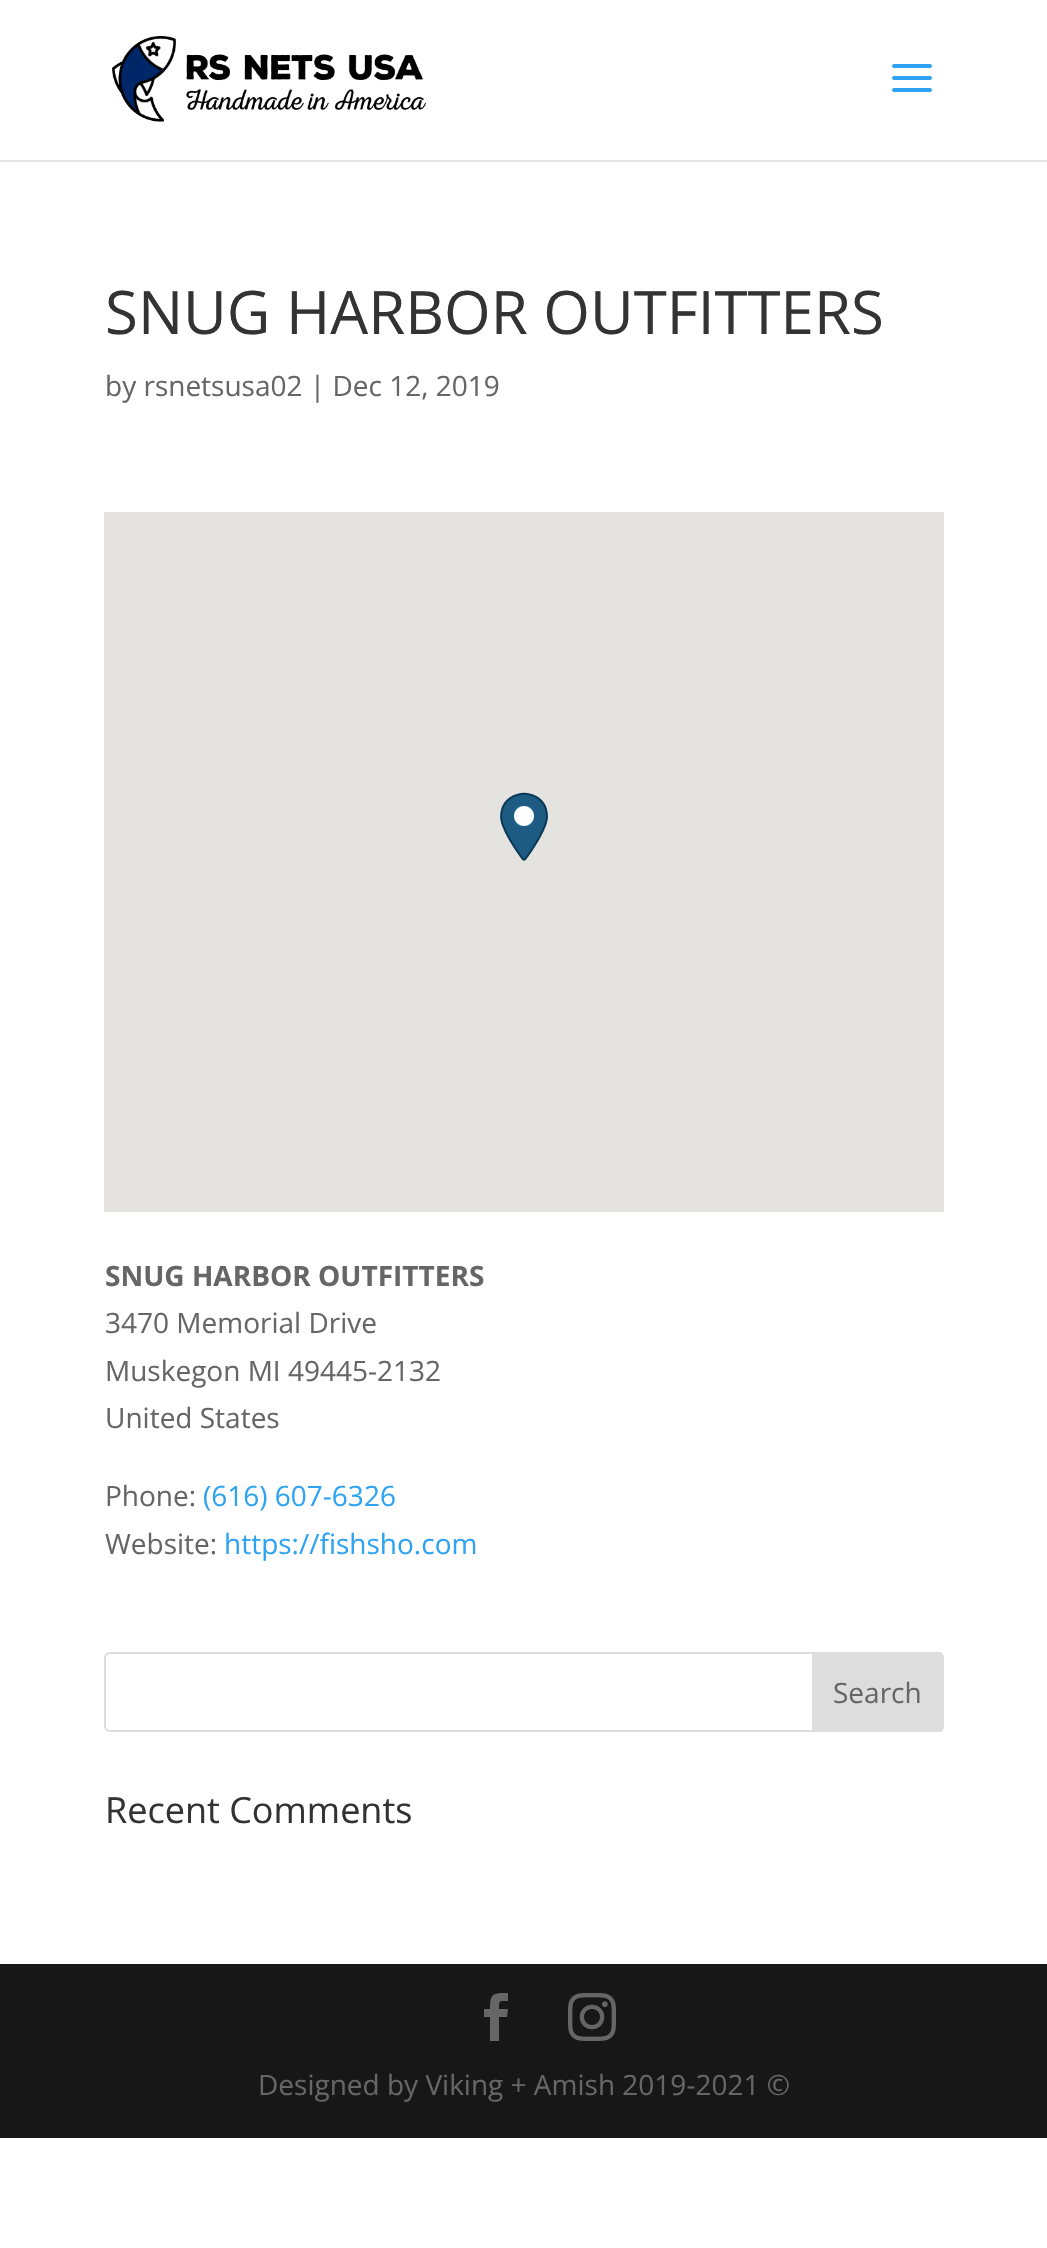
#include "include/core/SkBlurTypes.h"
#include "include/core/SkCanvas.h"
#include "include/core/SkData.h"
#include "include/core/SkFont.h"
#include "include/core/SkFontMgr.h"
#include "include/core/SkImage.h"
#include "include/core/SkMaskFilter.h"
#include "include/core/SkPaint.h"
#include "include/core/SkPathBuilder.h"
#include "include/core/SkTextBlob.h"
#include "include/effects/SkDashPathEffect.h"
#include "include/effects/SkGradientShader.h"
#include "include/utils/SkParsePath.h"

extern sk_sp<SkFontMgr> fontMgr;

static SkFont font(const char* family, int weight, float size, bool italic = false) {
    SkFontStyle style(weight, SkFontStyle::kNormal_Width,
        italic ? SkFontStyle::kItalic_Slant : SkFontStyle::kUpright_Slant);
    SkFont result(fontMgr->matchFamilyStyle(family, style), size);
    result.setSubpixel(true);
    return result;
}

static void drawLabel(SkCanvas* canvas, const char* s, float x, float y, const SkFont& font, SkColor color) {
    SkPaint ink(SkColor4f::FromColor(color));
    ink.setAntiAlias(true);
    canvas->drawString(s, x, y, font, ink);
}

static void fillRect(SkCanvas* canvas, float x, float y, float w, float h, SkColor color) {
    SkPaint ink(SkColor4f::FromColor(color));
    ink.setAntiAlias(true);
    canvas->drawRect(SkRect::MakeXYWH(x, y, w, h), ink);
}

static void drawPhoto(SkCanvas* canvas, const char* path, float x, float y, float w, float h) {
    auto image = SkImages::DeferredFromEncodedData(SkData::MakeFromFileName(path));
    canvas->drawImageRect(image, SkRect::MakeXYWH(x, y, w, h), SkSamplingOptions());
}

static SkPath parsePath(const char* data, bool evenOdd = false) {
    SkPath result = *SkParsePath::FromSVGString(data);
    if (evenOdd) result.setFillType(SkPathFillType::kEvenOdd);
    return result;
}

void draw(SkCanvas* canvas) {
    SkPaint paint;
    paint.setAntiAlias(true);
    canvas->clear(0xFFFFFFFF);
    fillRect(canvas, 0, 160, 1047, 2, 0xFFE6E6E6);
    drawPhoto(canvas, "assets/img1.png", 112, 36, 314, 86);
    drawPhoto(canvas, "assets/img2.png", 892, 64, 40, 28);
    SkFont font1 = font("Open Sans", 400, 60);
    drawLabel(canvas, "SNUG HARBOR OUTFITTERS", 105, 334, font1, 0xFF333333);
    SkFont font2 = font("Open Sans", 400, 28);
    drawLabel(canvas, "by rsnetsusa02 | Dec 12, 2019", 105, 396, font2, 0xFF666666);
    fillRect(canvas, 104, 512, 840, 700, 0xFFE5E3DF);
    drawPhoto(canvas, "assets/img3.png", 500, 792, 48, 69);
    SkFont font3 = font("Open Sans", 700, 28);
    drawLabel(canvas, "SNUG HARBOR OUTFITTERS", 105, 1286, font3, 0xFF666666);
    drawLabel(canvas, "3470 Memorial Drive", 105, 1333, font2, 0xFF666666);
    drawLabel(canvas, "Muskegon MI 49445-2132", 105, 1381, font2, 0xFF666666);
    drawLabel(canvas, "United States", 105, 1428, font2, 0xFF666666);
    drawLabel(canvas, "Phone:", 105, 1506, font2, 0xFF666666);
    drawLabel(canvas, "(616) 607-6326", 203, 1506, font2, 0xFF2EA3F2);
    drawLabel(canvas, "Website:", 105, 1554, font2, 0xFF666666);
    drawLabel(canvas, "https://fishsho.com", 224, 1554, font2, 0xFF2EA3F2);
    paint.setStroke(true);
    paint.setStrokeWidth(2);
    paint.setColor(0xFFDDDDDD);
    canvas->drawRoundRect(SkRect::MakeXYWH(105, 1653, 838, 78), 5, 5, paint);
    paint.setStroke(false);
    canvas->drawPath(parsePath("M813 1653H938C941 1653 943 1655 943 1658V1726C943 1729 941 1731 938 1731H813Z"), paint);
    paint.setStroke(true);
    canvas->drawPath(parsePath("M813 1653H938C941 1653 943 1655 943 1658V1726C943 1729 941 1731 938 1731H813Z"), paint);
    drawLabel(canvas, "Search", 833, 1703, font2, 0xFF666666);
    SkFont font4 = font("Open Sans", 400, 36);
    drawLabel(canvas, "Recent Comments", 105, 1823, font4, 0xFF333333);
    fillRect(canvas, 0, 1964, 1047, 174, 0xFF171717);
    paint.setStroke(false);
    paint.setColor(0xFF666666);
    canvas->drawPath(parsePath("M490 2041H499V2017H507L508 2009H499C499 2000 499 2001 508 2001V1993C493 1993 490 1993 490 2009H484V2017H490Z"), paint);
    drawPhoto(canvas, "assets/img4.png", 568, 1993, 48, 48);
    drawLabel(canvas, "Designed by Viking + Amish 2019-2021 ©", 258, 2095, font2, 0xFF666666);
}
